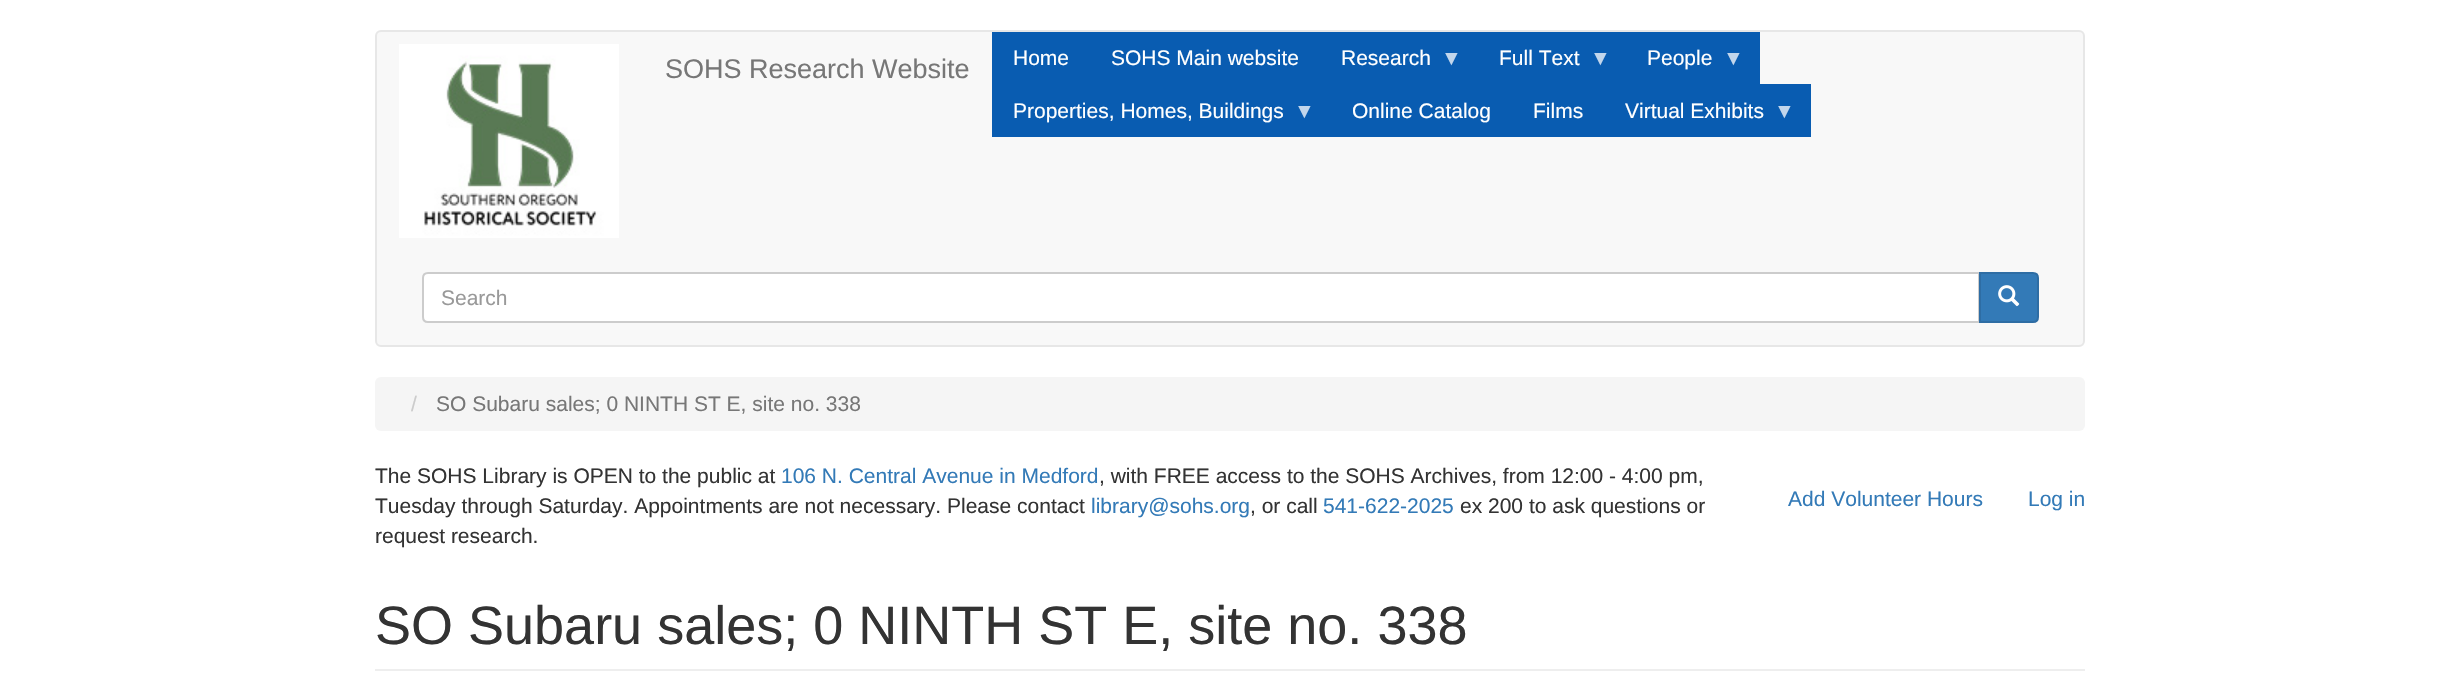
#include "include/core/SkBlurTypes.h"
#include "include/core/SkCanvas.h"
#include "include/core/SkData.h"
#include "include/core/SkFont.h"
#include "include/core/SkFontMgr.h"
#include "include/core/SkImage.h"
#include "include/core/SkMaskFilter.h"
#include "include/core/SkPaint.h"
#include "include/core/SkPathBuilder.h"
#include "include/core/SkTextBlob.h"
#include "include/effects/SkDashPathEffect.h"
#include "include/effects/SkGradientShader.h"
#include "include/utils/SkParsePath.h"

extern sk_sp<SkFontMgr> fontMgr;

static SkFont font(const char* family, int weight, float size, bool italic = false) {
    SkFontStyle style(weight, SkFontStyle::kNormal_Width,
        italic ? SkFontStyle::kItalic_Slant : SkFontStyle::kUpright_Slant);
    SkFont result(fontMgr->matchFamilyStyle(family, style), size);
    result.setSubpixel(true);
    return result;
}

static void drawLabel(SkCanvas* canvas, const char* s, float x, float y, const SkFont& font, SkColor color) {
    SkPaint ink(SkColor4f::FromColor(color));
    ink.setAntiAlias(true);
    canvas->drawString(s, x, y, font, ink);
}

static void fillRect(SkCanvas* canvas, float x, float y, float w, float h, SkColor color) {
    SkPaint ink(SkColor4f::FromColor(color));
    ink.setAntiAlias(true);
    canvas->drawRect(SkRect::MakeXYWH(x, y, w, h), ink);
}

static void fillRRect(SkCanvas* canvas, float x, float y, float w, float h, float radius, SkColor color) {
    SkPaint ink(SkColor4f::FromColor(color));
    ink.setAntiAlias(true);
    canvas->drawRoundRect(SkRect::MakeXYWH(x, y, w, h), radius, radius, ink);
}

static void drawPhoto(SkCanvas* canvas, const char* path, float x, float y, float w, float h) {
    auto image = SkImages::DeferredFromEncodedData(SkData::MakeFromFileName(path));
    canvas->drawImageRect(image, SkRect::MakeXYWH(x, y, w, h), SkSamplingOptions());
}

static SkPath parsePath(const char* data, bool evenOdd = false) {
    SkPath result = *SkParsePath::FromSVGString(data);
    if (evenOdd) result.setFillType(SkPathFillType::kEvenOdd);
    return result;
}

void draw(SkCanvas* canvas) {
    SkPaint paint;
    paint.setAntiAlias(true);
    canvas->clear(0xFFFFFFFF);
    paint.setColor(0xFFF8F8F8);
    canvas->drawRoundRect(SkRect::MakeXYWH(376, 31, 1708, 315), 5, 5, paint);
    paint.setStroke(true);
    paint.setStrokeWidth(2);
    paint.setColor(0xFFE7E7E7);
    canvas->drawRoundRect(SkRect::MakeXYWH(376, 31, 1708, 315), 5, 5, paint);
    fillRect(canvas, 992, 32, 768, 52, 0xFF095CB1);
    SkFont font1 = font("Liberation Sans", 400, 21);
    drawLabel(canvas, "Home", 1013, 65, font1, 0xFFFFFFFF);
    drawLabel(canvas, "SOHS Main website", 1111, 65, font1, 0xFFFFFFFF);
    drawLabel(canvas, "Research", 1341, 65, font1, 0xFFFFFFFF);
    drawLabel(canvas, "▼", 1441, 65, font1, 0xFFC2D6EC);
    drawLabel(canvas, "Full Text", 1499, 65, font1, 0xFFFFFFFF);
    drawLabel(canvas, "▼", 1590, 65, font1, 0xFFC2D6EC);
    drawLabel(canvas, "People", 1647, 65, font1, 0xFFFFFFFF);
    drawLabel(canvas, "▼", 1723, 65, font1, 0xFFC2D6EC);
    fillRect(canvas, 992, 84, 819, 53, 0xFF095CB1);
    drawLabel(canvas, "Properties, Homes, Buildings", 1013, 118, font1, 0xFFFFFFFF);
    drawLabel(canvas, "▼", 1294, 118, font1, 0xFFC2D6EC);
    drawLabel(canvas, "Online Catalog", 1352, 118, font1, 0xFFFFFFFF);
    drawLabel(canvas, "Films", 1533, 118, font1, 0xFFFFFFFF);
    drawLabel(canvas, "Virtual Exhibits", 1625, 118, font1, 0xFFFFFFFF);
    drawLabel(canvas, "▼", 1774, 118, font1, 0xFFC2D6EC);
    paint.setStroke(false);
    paint.setColor(0xFFFFFFFF);
    canvas->drawPath(parsePath("M428 273H1979V322H428C425 322 423 320 423 317V278C423 275 425 273 428 273Z"), paint);
    paint.setStroke(true);
    paint.setColor(0xFFCCCCCC);
    canvas->drawPath(parsePath("M428 273H1979V322H428C425 322 423 320 423 317V278C423 275 425 273 428 273Z"), paint);
    drawLabel(canvas, "Search", 441, 305, font1, 0xFF999999);
    paint.setStroke(false);
    paint.setColor(0xFF337AB7);
    canvas->drawPath(parsePath("M1980 273H2033C2036 273 2038 275 2038 278V317C2038 320 2036 322 2033 322H1980Z"), paint);
    paint.setStroke(true);
    paint.setColor(0xFF2E6DA4);
    canvas->drawPath(parsePath("M1980 273H2033C2036 273 2038 275 2038 278V317C2038 320 2036 322 2033 322H1980Z"), paint);
    drawPhoto(canvas, "assets/img1.png", 1998, 285, 22, 22);
    drawPhoto(canvas, "assets/img2.png", 399, 44, 220, 194);
    SkFont font2 = font("Liberation Sans", 400, 27);
    drawLabel(canvas, "SOHS Research Website", 665, 78, font2, 0xFF777777);
    fillRRect(canvas, 375, 377, 1710, 54, 6, 0xFFF5F5F5);
    drawLabel(canvas, "/", 411, 411, font1, 0xFFCCCCCC);
    drawLabel(canvas, "SO Subaru sales; 0 NINTH ST E, site no. 338", 436, 411, font1, 0xFF777777);
    drawLabel(canvas, "The SOHS Library is OPEN to the public at", 375, 483, font1, 0xFF333333);
    drawLabel(canvas, "106 N. Central Avenue in Medford", 781, 483, font1, 0xFF337AB7);
    drawLabel(canvas, ", with FREE access to the SOHS Archives, from 12:00 - 4:00 pm,", 1099, 483, font1, 0xFF333333);
    drawLabel(canvas, "Tuesday through Saturday. Appointments are not necessary. Please contact", 375, 513, font1, 0xFF333333);
    drawLabel(canvas, "library@sohs.org", 1091, 513, font1, 0xFF337AB7);
    drawLabel(canvas, ", or call", 1250, 513, font1, 0xFF333333);
    drawLabel(canvas, "541-622-2025", 1323, 513, font1, 0xFF337AB7);
    drawLabel(canvas, "ex 200 to ask questions or", 1460, 513, font1, 0xFF333333);
    drawLabel(canvas, "request research.", 375, 543, font1, 0xFF333333);
    drawLabel(canvas, "Add Volunteer Hours", 1788, 506, font1, 0xFF337AB7);
    drawLabel(canvas, "Log in", 2028, 506, font1, 0xFF337AB7);
    fillRect(canvas, 375, 669, 1710, 2, 0xFFEEEEEE);
    SkFont font3 = font("Liberation Sans", 400, 54);
    drawLabel(canvas, "SO Subaru sales; 0 NINTH ST E, site no. 338", 375, 644, font3, 0xFF333333);
}
